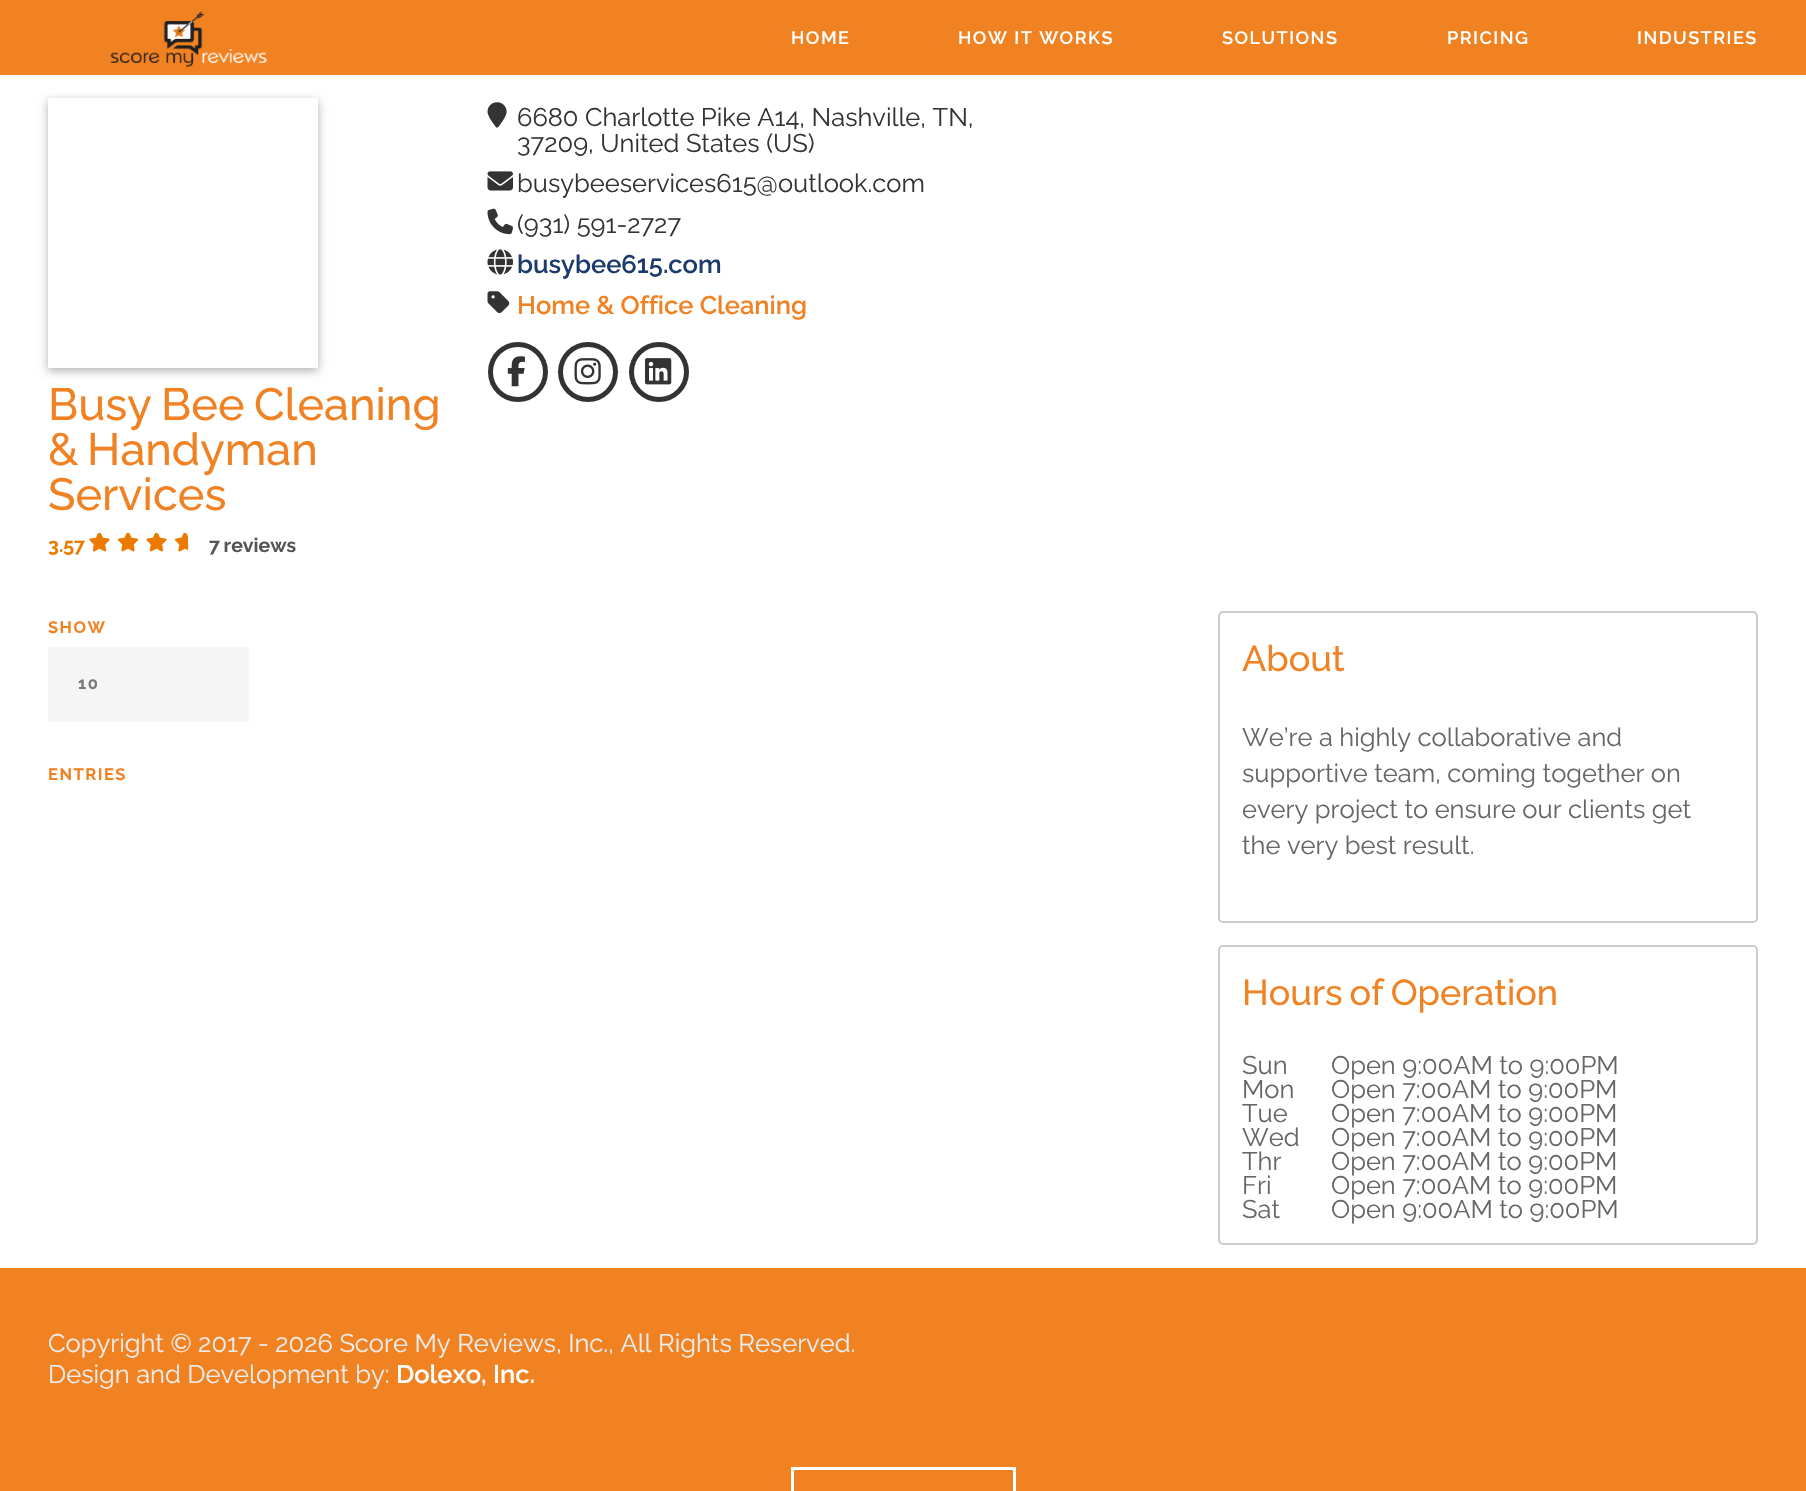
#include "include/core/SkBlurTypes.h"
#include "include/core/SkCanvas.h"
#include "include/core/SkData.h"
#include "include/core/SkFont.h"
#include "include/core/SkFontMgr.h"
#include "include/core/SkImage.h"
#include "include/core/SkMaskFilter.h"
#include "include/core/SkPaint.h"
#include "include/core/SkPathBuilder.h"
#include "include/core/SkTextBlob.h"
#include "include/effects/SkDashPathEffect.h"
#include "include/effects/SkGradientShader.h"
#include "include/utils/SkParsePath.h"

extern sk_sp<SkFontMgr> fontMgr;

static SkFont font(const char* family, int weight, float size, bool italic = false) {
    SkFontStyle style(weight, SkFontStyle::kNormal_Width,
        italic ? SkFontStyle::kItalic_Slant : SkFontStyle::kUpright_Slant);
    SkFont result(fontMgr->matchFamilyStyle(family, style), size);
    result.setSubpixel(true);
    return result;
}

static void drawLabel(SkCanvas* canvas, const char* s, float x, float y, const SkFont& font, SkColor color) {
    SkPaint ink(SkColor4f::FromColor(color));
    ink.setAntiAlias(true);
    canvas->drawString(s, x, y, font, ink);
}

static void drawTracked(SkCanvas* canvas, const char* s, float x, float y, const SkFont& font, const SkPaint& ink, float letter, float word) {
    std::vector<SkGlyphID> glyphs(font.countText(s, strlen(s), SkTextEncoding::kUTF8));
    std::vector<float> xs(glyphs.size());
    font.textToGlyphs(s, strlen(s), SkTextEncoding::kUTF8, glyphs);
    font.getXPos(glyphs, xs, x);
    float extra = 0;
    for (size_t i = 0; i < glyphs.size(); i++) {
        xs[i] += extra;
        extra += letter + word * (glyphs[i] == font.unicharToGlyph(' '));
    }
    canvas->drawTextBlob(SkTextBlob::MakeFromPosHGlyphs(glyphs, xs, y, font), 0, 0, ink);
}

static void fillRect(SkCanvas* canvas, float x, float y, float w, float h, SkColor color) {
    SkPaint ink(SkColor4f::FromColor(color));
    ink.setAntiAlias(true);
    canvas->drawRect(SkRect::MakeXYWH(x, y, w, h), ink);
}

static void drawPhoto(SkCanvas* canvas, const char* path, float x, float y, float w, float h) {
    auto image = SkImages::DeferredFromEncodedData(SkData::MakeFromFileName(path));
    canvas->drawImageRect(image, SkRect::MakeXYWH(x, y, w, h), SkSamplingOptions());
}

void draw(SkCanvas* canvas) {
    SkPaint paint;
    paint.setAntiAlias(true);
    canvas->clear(0xFFFFFFFF);
    fillRect(canvas, 0, 0, 1806, 75, 0xFFF18222);
    drawPhoto(canvas, "assets/img1.png", 110, 11, 158, 57);
    SkFont font1 = font("Raleway", 600, 18);
    paint.setColor(0xFFFFFFFF);
    drawTracked(canvas, "HOME", 791, 44, font1, paint, 1.5f, 0);
    drawTracked(canvas, "HOW IT WORKS", 958, 44, font1, paint, 1.5f, 0);
    drawTracked(canvas, "SOLUTIONS", 1222, 44, font1, paint, 1.5f, 0);
    drawTracked(canvas, "PRICING", 1447, 44, font1, paint, 1.5f, 0);
    drawTracked(canvas, "INDUSTRIES", 1637, 44, font1, paint, 1.5f, 0);
    drawPhoto(canvas, "assets/img2.png", 487, 102, 20, 26);
    SkFont font2 = font("Raleway", 400, 25.5f);
    drawLabel(canvas, "6680 Charlotte Pike A14, Nashville, TN,", 517, 126, font2, 0xFF333333);
    drawLabel(canvas, "37209, United States (US)", 517, 152, font2, 0xFF333333);
    drawPhoto(canvas, "assets/img3.png", 487, 171, 26, 20);
    drawLabel(canvas, "busybeeservices615@outlook.com", 517, 192, font2, 0xFF333333);
    drawPhoto(canvas, "assets/img4.png", 487, 208, 26, 27);
    drawLabel(canvas, "(931) 591-2727", 517, 233, font2, 0xFF333333);
    drawPhoto(canvas, "assets/img5.png", 487, 249, 26, 26);
    SkFont font3 = font("Raleway", 600, 25.5f);
    drawLabel(canvas, "busybee615.com", 517, 273, font3, 0xFF1B3A6D);
    drawPhoto(canvas, "assets/img6.png", 487, 291, 23, 23);
    drawLabel(canvas, "Home & Office Cleaning", 517, 314, font3, 0xFFF08223);
    paint.setStroke(true);
    paint.setStrokeWidth(5);
    paint.setColor(0xFF333333);
    canvas->drawCircle(518, 372, 27.5f, paint);
    drawPhoto(canvas, "assets/img7.png", 507, 356, 18, 31);
    canvas->drawCircle(588, 372, 27.5f, paint);
    drawPhoto(canvas, "assets/img8.png", 574, 358, 27, 27);
    canvas->drawCircle(659, 372, 27.5f, paint);
    drawPhoto(canvas, "assets/img9.png", 645, 358, 27, 27);
    paint.setStroke(false);
    paint.setColor(0x4D000000);
    paint.setMaskFilter(SkMaskFilter::MakeBlur(kNormal_SkBlurStyle, 4.5f));
    canvas->drawRect(SkRect::MakeXYWH(48, 101, 270, 270), paint);
    paint.setMaskFilter(nullptr);
    fillRect(canvas, 48, 98, 270, 270, 0xFFFFFFFF);
    SkFont font4 = font("Raleway", 500, 45);
    paint.setColor(0xFFF08223);
    drawTracked(canvas, "Busy Bee Cleaning", 48, 420, font4, paint, 0, -2);
    drawTracked(canvas, "& Handyman", 48, 465, font4, paint, 0, -3);
    drawLabel(canvas, "Services", 48, 510, font4, 0xFFF08223);
    SkFont font5 = font("Raleway", 700, 19.5f);
    drawLabel(canvas, "3.57", 48, 552, font5, 0xFFEC7A00);
    drawPhoto(canvas, "assets/img10.png", 89, 533, 21, 19);
    drawPhoto(canvas, "assets/img11.png", 117, 533, 21, 19);
    drawPhoto(canvas, "assets/img10.png", 146, 533, 21, 19);
    drawPhoto(canvas, "assets/img12.png", 174, 533, 14, 19);
    paint.setColor(0xFF555555);
    drawTracked(canvas, "7 reviews", 209, 552, font5, paint, 0, -1);
    SkFont font6 = font("Raleway", 700, 16.5f);
    paint.setColor(0xFFF08223);
    drawTracked(canvas, "SHOW", 48, 633, font6, paint, 1.5f, 0);
    fillRect(canvas, 48, 647, 201, 75, 0xFFF5F5F5);
    paint.setColor(0xFF777777);
    drawTracked(canvas, "10", 78, 689, font6, paint, 1.5f, 0);
    paint.setColor(0xFFF08223);
    drawTracked(canvas, "ENTRIES", 48, 780, font6, paint, 1.5f, 0);
    paint.setStroke(true);
    paint.setStrokeWidth(2);
    paint.setColor(0xFFCCCCCC);
    canvas->drawRoundRect(SkRect::MakeXYWH(1219, 612, 538, 310), 4, 4, paint);
    SkFont font7 = font("Raleway", 500, 36);
    drawLabel(canvas, "About", 1242, 671, font7, 0xFFF08223);
    drawLabel(canvas, "We’re a highly collaborative and", 1242, 746, font2, 0xFF666666);
    drawLabel(canvas, "supportive team, coming together on", 1242, 782, font2, 0xFF666666);
    drawLabel(canvas, "every project to ensure our clients get", 1242, 818, font2, 0xFF666666);
    drawLabel(canvas, "the very best result.", 1242, 854, font2, 0xFF666666);
    canvas->drawRoundRect(SkRect::MakeXYWH(1219, 946, 538, 298), 4, 4, paint);
    paint.setStroke(false);
    paint.setColor(0xFFF08223);
    drawTracked(canvas, "Hours of Operation", 1242, 1005, font7, paint, 0, -2);
    drawLabel(canvas, "Sun", 1242, 1074, font2, 0xFF666666);
    drawLabel(canvas, "Open 9:00AM to 9:00PM", 1331, 1074, font2, 0xFF666666);
    drawLabel(canvas, "Mon", 1242, 1098, font2, 0xFF666666);
    drawLabel(canvas, "Open 7:00AM to 9:00PM", 1331, 1098, font2, 0xFF666666);
    drawLabel(canvas, "Tue", 1242, 1122, font2, 0xFF666666);
    drawLabel(canvas, "Open 7:00AM to 9:00PM", 1331, 1122, font2, 0xFF666666);
    drawLabel(canvas, "Wed", 1242, 1146, font2, 0xFF666666);
    drawLabel(canvas, "Open 7:00AM to 9:00PM", 1331, 1146, font2, 0xFF666666);
    drawLabel(canvas, "Thr", 1242, 1170, font2, 0xFF666666);
    drawLabel(canvas, "Open 7:00AM to 9:00PM", 1331, 1170, font2, 0xFF666666);
    drawLabel(canvas, "Fri", 1242, 1194, font2, 0xFF666666);
    drawLabel(canvas, "Open 7:00AM to 9:00PM", 1331, 1194, font2, 0xFF666666);
    drawLabel(canvas, "Sat", 1242, 1218, font2, 0xFF666666);
    drawLabel(canvas, "Open 9:00AM to 9:00PM", 1331, 1218, font2, 0xFF666666);
    fillRect(canvas, 0, 1268, 1806, 223, 0xFFF18222);
    drawLabel(canvas, "Copyright © 2017 - 2026 Score My Reviews, Inc., All Rights Reserved.", 48, 1352, font2, 0xFFECECEC);
    drawLabel(canvas, "Design and Development by:", 48, 1383, font2, 0xFFECECEC);
    drawLabel(canvas, "Dolexo, Inc.", 396, 1383, font3, 0xFFFFFFFF);
    paint.setStroke(true);
    paint.setStrokeWidth(3);
    paint.setColor(0xFFFFFFFF);
    canvas->drawRect(SkRect::MakeXYWH(792.5f, 1468.5f, 222, 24), paint);
}
